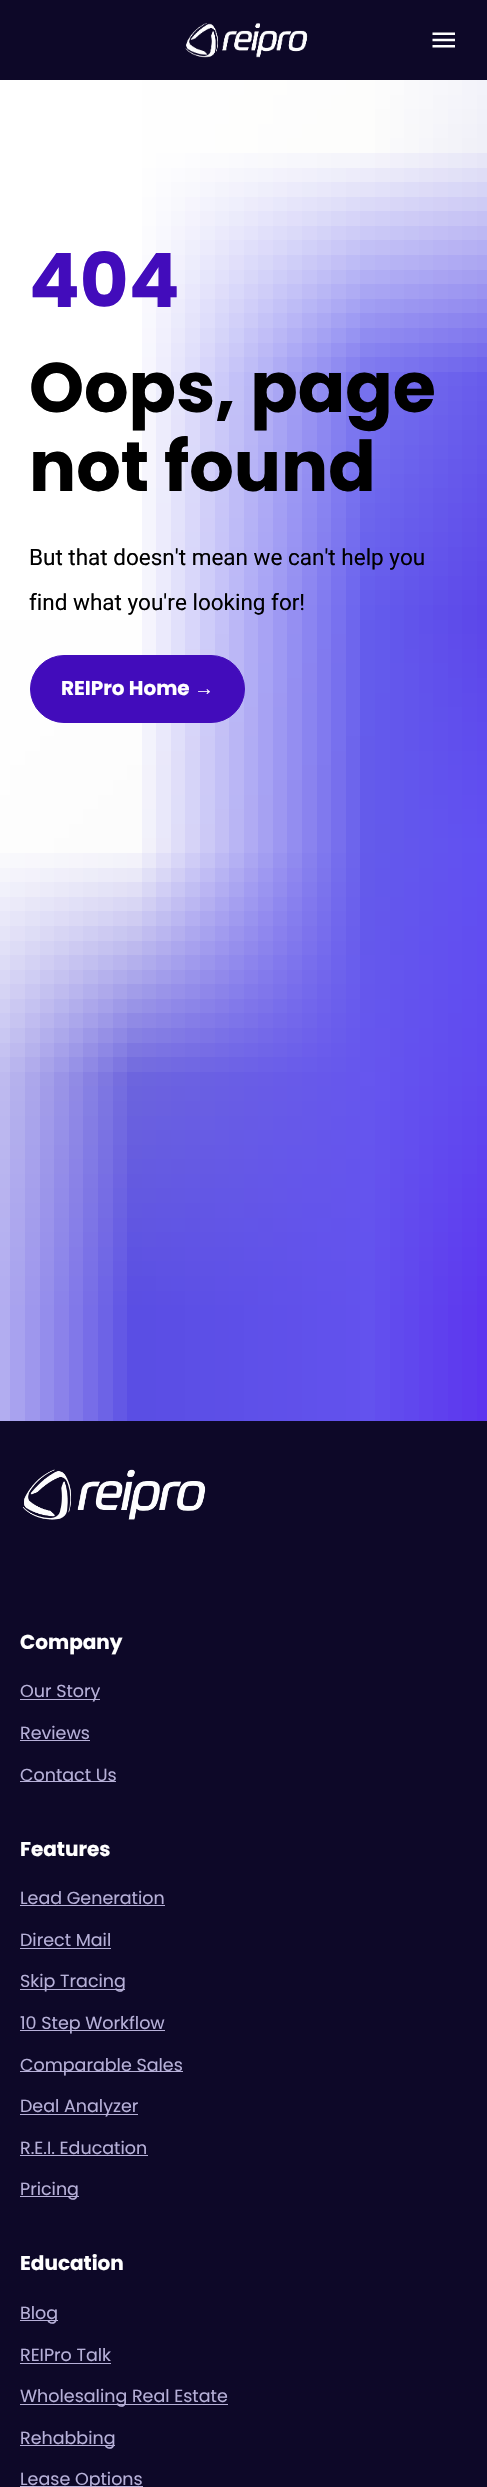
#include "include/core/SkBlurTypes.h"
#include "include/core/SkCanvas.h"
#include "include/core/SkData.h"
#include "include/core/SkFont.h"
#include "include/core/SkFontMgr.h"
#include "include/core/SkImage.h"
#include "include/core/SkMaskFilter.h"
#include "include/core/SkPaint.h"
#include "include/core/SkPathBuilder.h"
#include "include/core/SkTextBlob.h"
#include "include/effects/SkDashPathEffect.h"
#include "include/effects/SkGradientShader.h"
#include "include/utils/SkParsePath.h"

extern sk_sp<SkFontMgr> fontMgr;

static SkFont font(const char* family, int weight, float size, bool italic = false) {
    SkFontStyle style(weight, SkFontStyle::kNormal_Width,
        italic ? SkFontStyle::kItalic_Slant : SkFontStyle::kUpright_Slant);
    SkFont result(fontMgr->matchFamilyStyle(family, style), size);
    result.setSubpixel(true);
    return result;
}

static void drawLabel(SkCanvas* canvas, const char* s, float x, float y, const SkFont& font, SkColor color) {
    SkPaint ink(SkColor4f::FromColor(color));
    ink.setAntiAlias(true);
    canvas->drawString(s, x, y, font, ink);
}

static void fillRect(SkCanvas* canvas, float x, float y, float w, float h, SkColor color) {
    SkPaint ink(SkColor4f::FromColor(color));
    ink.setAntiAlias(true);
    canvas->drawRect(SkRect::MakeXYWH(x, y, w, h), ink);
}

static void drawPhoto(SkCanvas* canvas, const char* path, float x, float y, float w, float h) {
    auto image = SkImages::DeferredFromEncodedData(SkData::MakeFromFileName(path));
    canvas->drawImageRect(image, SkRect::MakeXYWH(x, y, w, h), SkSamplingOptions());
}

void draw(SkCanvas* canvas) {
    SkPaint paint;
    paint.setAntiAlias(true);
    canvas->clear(0xFFFFFFFF);
    fillRect(canvas, 0, 0, 487, 80, 0xFF0D0828);
    drawPhoto(canvas, "assets/img1.png", 185, 23, 123, 35);
    drawPhoto(canvas, "assets/img2.png", 432, 32, 23, 16);
    drawPhoto(canvas, "assets/img3.png", 0, 80, 487, 1341);
    SkFont font1 = font("Poppins", 700, 75);
    drawLabel(canvas, "404", 29, 307, font1, 0xFF420CBB);
    SkFont font2 = font("Poppins", 700, 70);
    drawLabel(canvas, "Oops, page", 29, 412, font2, 0xFF000000);
    drawLabel(canvas, "not found", 29, 491, font2, 0xFF000000);
    SkFont font3 = font("Roboto", 400, 22.5f);
    drawLabel(canvas, "But that doesn't mean we can't help you", 29, 565, font3, 0xFF000000);
    drawLabel(canvas, "find what you're looking for!", 29, 610, font3, 0xFF000000);
    paint.setColor(0xFF420CBB);
    canvas->drawRoundRect(SkRect::MakeXYWH(30.5f, 655.5f, 214, 67), 33.5f, 33.5f, paint);
    paint.setStroke(true);
    paint.setStrokeWidth(1);
    canvas->drawRoundRect(SkRect::MakeXYWH(30.5f, 655.5f, 214, 67), 33.5f, 33.5f, paint);
    SkFont font4 = font("Poppins", 700, 20);
    drawLabel(canvas, "REIPro Home", 61, 695, font4, 0xFFFFFFFF);
    SkFont font5 = font("Liberation Sans", 700, 20);
    drawLabel(canvas, "→", 194, 695, font5, 0xFFFFFFFF);
    fillRect(canvas, 0, 1421, 487, 1066, 0xFF0D0828);
    drawPhoto(canvas, "assets/img4.png", 22, 1469, 184, 51);
    drawLabel(canvas, "Company", 20, 1649, font4, 0xFFFFFFFF);
    fillRect(canvas, 20, 1699, 80, 1, 0xFFB6B0D8);
    SkFont font6 = font("Poppins", 400, 17.5f);
    drawLabel(canvas, "Our Story", 20, 1697, font6, 0xFFB6B0D8);
    drawLabel(canvas, "Reviews", 20, 1739, font6, 0xFFB6B0D8);
    fillRect(canvas, 20, 1740, 70, 1, 0xFFB6B0D8);
    fillRect(canvas, 20, 1781, 96, 1, 0xFFB6B0D8);
    drawLabel(canvas, "Contact Us", 20, 1781, font6, 0xFFB6B0D8);
    drawLabel(canvas, "Features", 20, 1856, font4, 0xFFFFFFFF);
    drawLabel(canvas, "Lead Generation", 20, 1904, font6, 0xFFB6B0D8);
    fillRect(canvas, 20, 1905, 145, 1, 0xFFB6B0D8);
    drawLabel(canvas, "Direct Mail", 20, 1946, font6, 0xFFB6B0D8);
    fillRect(canvas, 20, 1948, 91, 1, 0xFFB6B0D8);
    fillRect(canvas, 20, 1989, 105, 1, 0xFFB6B0D8);
    drawLabel(canvas, "Skip Tracing", 20, 1987, font6, 0xFFB6B0D8);
    fillRect(canvas, 20, 2030, 145, 1, 0xFFB6B0D8);
    drawLabel(canvas, "10 Step Workflow", 20, 2029, font6, 0xFFB6B0D8);
    fillRect(canvas, 20, 2071, 163, 1, 0xFFB6B0D8);
    drawLabel(canvas, "Comparable Sales", 20, 2071, font6, 0xFFB6B0D8);
    fillRect(canvas, 20, 2114, 118, 1, 0xFFB6B0D8);
    drawLabel(canvas, "Deal Analyzer", 20, 2112, font6, 0xFFB6B0D8);
    drawLabel(canvas, "R.E.I. Education", 20, 2154, font6, 0xFFB6B0D8);
    fillRect(canvas, 20, 2155, 128, 1, 0xFFB6B0D8);
    fillRect(canvas, 20, 2196, 59, 1, 0xFFB6B0D8);
    drawLabel(canvas, "Pricing", 20, 2195, font6, 0xFFB6B0D8);
    drawLabel(canvas, "Education", 20, 2270, font4, 0xFFFFFFFF);
    fillRect(canvas, 20, 2320, 38, 1, 0xFFB6B0D8);
    drawLabel(canvas, "Blog", 20, 2319, font6, 0xFFB6B0D8);
    drawLabel(canvas, "REIPro Talk", 20, 2361, font6, 0xFFB6B0D8);
    fillRect(canvas, 20, 2363, 91, 1, 0xFFB6B0D8);
    fillRect(canvas, 20, 2404, 208, 1, 0xFFB6B0D8);
    drawLabel(canvas, "Wholesaling Real Estate", 20, 2402, font6, 0xFFB6B0D8);
    fillRect(canvas, 20, 2445, 95, 1, 0xFFB6B0D8);
    drawLabel(canvas, "Rehabbing", 20, 2444, font6, 0xFFB6B0D8);
    fillRect(canvas, 20, 2486, 123, 1, 0xFFB6B0D8);
    drawLabel(canvas, "Lease Options", 20, 2485, font6, 0xFFB6B0D8);
}
